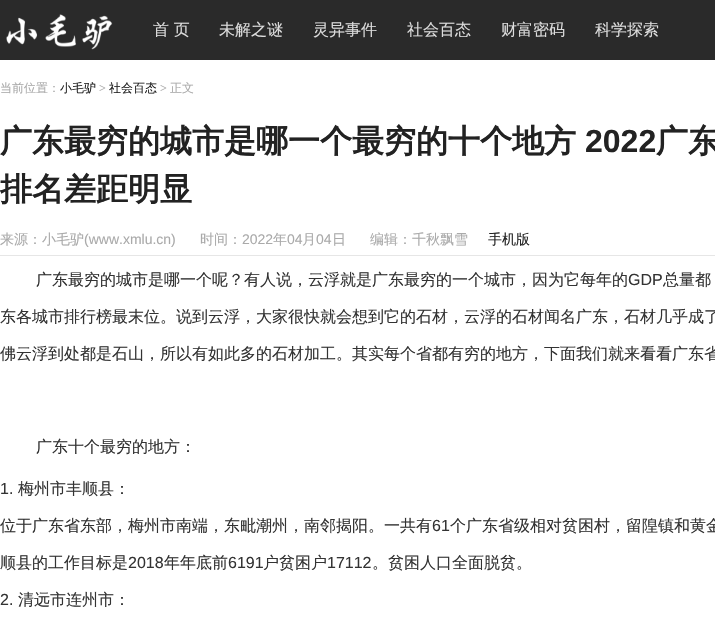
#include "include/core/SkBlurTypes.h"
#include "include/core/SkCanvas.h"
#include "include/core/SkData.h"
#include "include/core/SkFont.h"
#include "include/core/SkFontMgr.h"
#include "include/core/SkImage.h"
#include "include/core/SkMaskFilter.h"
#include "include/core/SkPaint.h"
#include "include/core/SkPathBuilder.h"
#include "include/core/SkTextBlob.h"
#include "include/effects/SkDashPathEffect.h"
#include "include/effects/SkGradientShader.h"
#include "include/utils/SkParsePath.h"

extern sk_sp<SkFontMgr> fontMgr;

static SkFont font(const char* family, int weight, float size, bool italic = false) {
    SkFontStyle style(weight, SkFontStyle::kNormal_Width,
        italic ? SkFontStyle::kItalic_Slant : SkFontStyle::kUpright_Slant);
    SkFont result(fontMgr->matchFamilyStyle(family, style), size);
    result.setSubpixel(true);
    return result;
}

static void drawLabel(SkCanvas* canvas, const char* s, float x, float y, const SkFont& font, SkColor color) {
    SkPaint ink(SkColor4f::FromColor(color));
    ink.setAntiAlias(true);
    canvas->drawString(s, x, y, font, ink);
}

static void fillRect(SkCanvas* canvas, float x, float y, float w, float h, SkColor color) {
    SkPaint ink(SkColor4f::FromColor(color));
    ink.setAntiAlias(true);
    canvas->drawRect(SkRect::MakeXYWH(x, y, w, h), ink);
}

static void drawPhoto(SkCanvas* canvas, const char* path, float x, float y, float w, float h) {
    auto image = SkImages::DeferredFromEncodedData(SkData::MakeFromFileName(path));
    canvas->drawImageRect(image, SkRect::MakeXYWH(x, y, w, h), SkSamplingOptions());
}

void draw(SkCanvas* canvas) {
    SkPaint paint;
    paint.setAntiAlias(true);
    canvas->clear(0xFFFFFFFF);
    fillRect(canvas, 0, 0, 715, 60, 0xFF2A2A2A);
    drawPhoto(canvas, "assets/img1.png", 6, 14, 107, 36);
    SkFont font1 = font("WenQuanYi Zen Hei", 500, 16);
    drawLabel(canvas, "首 页", 153, 35, font1, 0xFFDDDDDD);
    drawLabel(canvas, "未解之谜", 219, 35, font1, 0xFFDDDDDD);
    drawLabel(canvas, "灵异事件", 313, 35, font1, 0xFFDDDDDD);
    drawLabel(canvas, "社会百态", 407, 35, font1, 0xFFDDDDDD);
    drawLabel(canvas, "财富密码", 501, 35, font1, 0xFFDDDDDD);
    drawLabel(canvas, "科学探索", 595, 35, font1, 0xFFDDDDDD);
    SkFont font2 = font("WenQuanYi Zen Hei", 500, 12);
    drawLabel(canvas, "当前位置：", 0, 92, font2, 0xFFAAAAAA);
    drawLabel(canvas, "小毛驴", 60, 92, font2, 0xFF222222);
    SkFont font3 = font("Liberation Serif", 400, 12);
    drawLabel(canvas, ">", 99, 92, font3, 0xFFAAAAAA);
    drawLabel(canvas, "社会百态", 109, 92, font2, 0xFF222222);
    drawLabel(canvas, ">", 160, 92, font3, 0xFFAAAAAA);
    drawLabel(canvas, "正文", 170, 92, font2, 0xFFAAAAAA);
    SkFont font4 = font("WenQuanYi Zen Hei", 700, 32);
    drawLabel(canvas, "广东最穷的城市是哪一个最穷的十个地方", 0, 152, font4, 0xFF222222);
    SkFont font5 = font("Liberation Sans", 700, 32);
    drawLabel(canvas, "2022", 585, 152, font5, 0xFF222222);
    drawLabel(canvas, "广东", 656, 152, font4, 0xFF222222);
    drawLabel(canvas, "排名差距明显", 0, 200, font4, 0xFF222222);
    fillRect(canvas, 0, 255, 715, 1, 0xFFE6E6E6);
    SkFont font6 = font("WenQuanYi Zen Hei", 500, 14);
    drawLabel(canvas, "来源：小毛驴", 0, 244, font6, 0xFFAAAAAA);
    SkFont font7 = font("Liberation Sans", 400, 14);
    drawLabel(canvas, "(www.xmlu.cn)", 84, 244, font7, 0xFFAAAAAA);
    drawLabel(canvas, "时间：", 200, 244, font6, 0xFFAAAAAA);
    drawLabel(canvas, "2022", 242, 244, font7, 0xFFAAAAAA);
    drawLabel(canvas, "年", 273, 244, font6, 0xFFAAAAAA);
    drawLabel(canvas, "04", 287, 244, font7, 0xFFAAAAAA);
    drawLabel(canvas, "月", 302, 244, font6, 0xFFAAAAAA);
    drawLabel(canvas, "04", 316, 244, font7, 0xFFAAAAAA);
    drawLabel(canvas, "日", 332, 244, font6, 0xFFAAAAAA);
    drawLabel(canvas, "编辑：千秋飘雪", 370, 244, font6, 0xFFAAAAAA);
    drawLabel(canvas, "手机版", 488, 244, font6, 0xFF222222);
    drawLabel(canvas, "广东最穷的城市是哪一个呢？有人说，云浮就是广东最穷的一个城市，因为它每年的", 36, 285, font1, 0xFF333333);
    SkFont font8 = font("Liberation Sans", 400, 16);
    drawLabel(canvas, "GDP", 628, 285, font8, 0xFF333333);
    drawLabel(canvas, "总量都", 663, 285, font1, 0xFF333333);
    drawLabel(canvas, "东各城市排行榜最末位。说到云浮，大家很快就会想到它的石材，云浮的石材闻名广东，石材几乎成了", 0, 322, font1, 0xFF333333);
    drawLabel(canvas, "佛云浮到处都是石山，所以有如此多的石材加工。其实每个省都有穷的地方，下面我们就来看看广东省", 0, 359, font1, 0xFF333333);
    drawLabel(canvas, "广东十个最穷的地方：", 36, 452, font1, 0xFF333333);
    drawLabel(canvas, "1.", 0, 494, font8, 0xFF333333);
    drawLabel(canvas, "梅州市丰顺县：", 18, 494, font1, 0xFF333333);
    drawLabel(canvas, "位于广东省东部，梅州市南端，东毗潮州，南邻揭阳。一共有", 0, 531, font1, 0xFF333333);
    drawLabel(canvas, "61", 432, 531, font8, 0xFF333333);
    drawLabel(canvas, "个广东省级相对贫困村，留隍镇和黄金", 450, 531, font1, 0xFF333333);
    drawLabel(canvas, "顺县的工作目标是", 0, 568, font1, 0xFF333333);
    drawLabel(canvas, "2018", 128, 568, font8, 0xFF333333);
    drawLabel(canvas, "年年底前", 164, 568, font1, 0xFF333333);
    drawLabel(canvas, "6191", 228, 568, font8, 0xFF333333);
    drawLabel(canvas, "户贫困户", 263, 568, font1, 0xFF333333);
    drawLabel(canvas, "17112", 327, 568, font8, 0xFF333333);
    drawLabel(canvas, "。贫困人口全面脱贫。", 372, 568, font1, 0xFF333333);
    drawLabel(canvas, "2.", 0, 605, font8, 0xFF333333);
    drawLabel(canvas, "清远市连州市：", 18, 605, font1, 0xFF333333);
}
